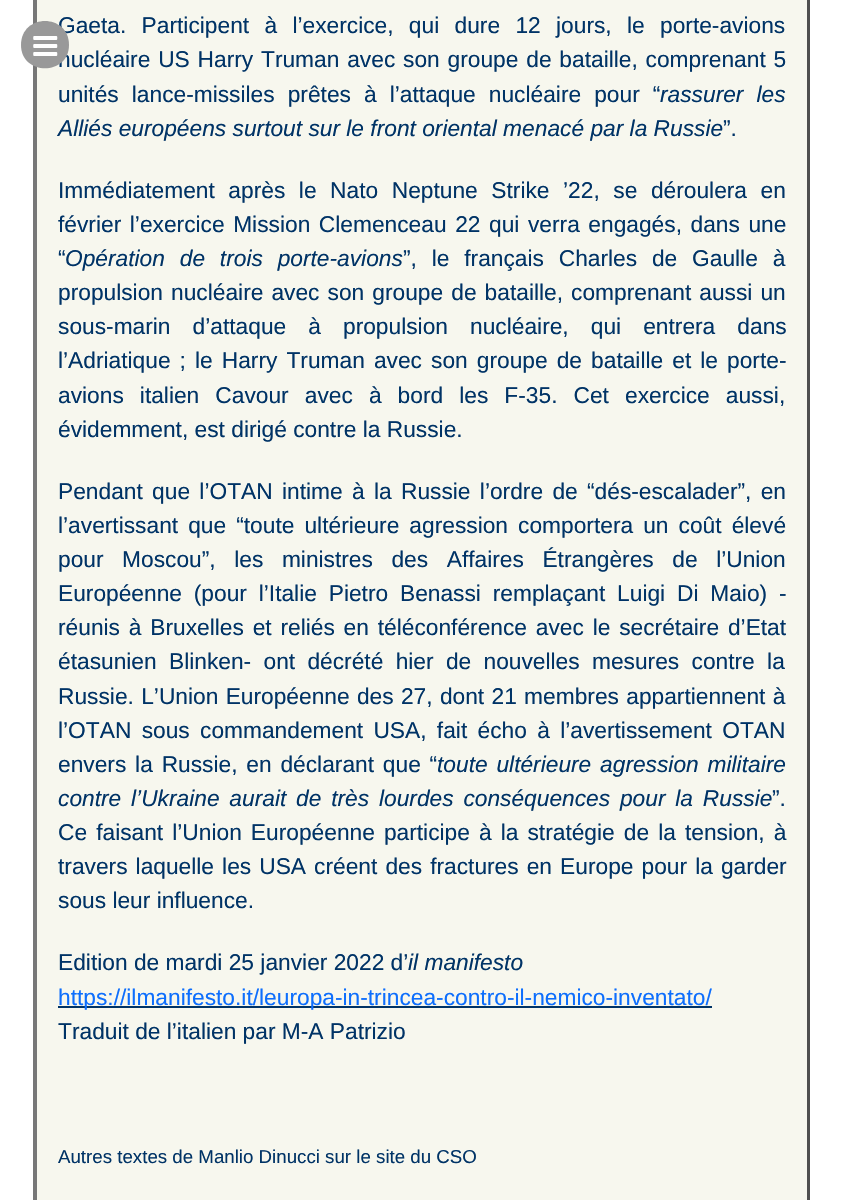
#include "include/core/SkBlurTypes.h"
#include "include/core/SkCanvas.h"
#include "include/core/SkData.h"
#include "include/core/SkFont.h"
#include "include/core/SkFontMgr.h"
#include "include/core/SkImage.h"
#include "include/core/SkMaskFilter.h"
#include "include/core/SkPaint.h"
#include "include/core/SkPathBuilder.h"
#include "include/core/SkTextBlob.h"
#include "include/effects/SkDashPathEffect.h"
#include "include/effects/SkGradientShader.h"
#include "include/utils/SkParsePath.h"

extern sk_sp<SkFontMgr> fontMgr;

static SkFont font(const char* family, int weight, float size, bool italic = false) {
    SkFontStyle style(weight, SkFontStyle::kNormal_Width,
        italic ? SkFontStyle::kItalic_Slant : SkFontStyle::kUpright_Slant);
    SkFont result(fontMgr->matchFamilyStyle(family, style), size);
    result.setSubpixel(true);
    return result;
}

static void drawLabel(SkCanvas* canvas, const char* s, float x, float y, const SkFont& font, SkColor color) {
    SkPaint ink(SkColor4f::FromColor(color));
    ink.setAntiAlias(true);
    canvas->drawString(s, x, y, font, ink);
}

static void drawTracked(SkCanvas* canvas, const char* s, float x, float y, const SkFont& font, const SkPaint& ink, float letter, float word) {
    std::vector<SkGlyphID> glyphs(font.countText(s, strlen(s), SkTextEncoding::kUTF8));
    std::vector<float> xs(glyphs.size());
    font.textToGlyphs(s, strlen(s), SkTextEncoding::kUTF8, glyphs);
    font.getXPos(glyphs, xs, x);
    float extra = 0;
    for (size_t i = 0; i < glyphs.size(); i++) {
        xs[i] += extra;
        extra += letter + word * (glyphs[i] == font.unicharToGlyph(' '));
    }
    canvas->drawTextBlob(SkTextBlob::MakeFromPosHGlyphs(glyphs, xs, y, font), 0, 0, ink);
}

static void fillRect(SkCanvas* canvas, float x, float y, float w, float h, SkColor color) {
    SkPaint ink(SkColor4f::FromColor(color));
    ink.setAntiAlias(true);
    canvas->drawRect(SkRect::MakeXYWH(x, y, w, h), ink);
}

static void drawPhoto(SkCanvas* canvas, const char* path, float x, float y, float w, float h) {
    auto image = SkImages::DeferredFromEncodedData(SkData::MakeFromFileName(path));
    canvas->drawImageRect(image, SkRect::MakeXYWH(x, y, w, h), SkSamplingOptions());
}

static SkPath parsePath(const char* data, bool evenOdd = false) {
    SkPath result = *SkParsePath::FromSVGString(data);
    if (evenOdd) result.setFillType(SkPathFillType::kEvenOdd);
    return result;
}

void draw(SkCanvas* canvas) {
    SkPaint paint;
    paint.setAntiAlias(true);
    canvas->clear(0xFFFFFFFF);
    fillRect(canvas, 37, 0, 770, 1200, 0xFFF7F7EE);
    paint.setColor(0xFF777777);
    canvas->drawPath(parsePath("M33 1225V-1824L37-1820V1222Z"), paint);
    SkFont font1 = font("Liberation Sans", 400, 22.75f);
    paint.setColor(0xFF003366);
    drawTracked(canvas, "Gaeta. Participent à l’exercice, qui dure 12 jours, le porte-avions", 58, 33, font1, paint, 0, 9);
    drawTracked(canvas, "nucléaire US Harry Truman avec son groupe de bataille, comprenant 5", 58, 67, font1, paint, 0, 1.5f);
    paint.setColor(0xFF999999);
    canvas->drawPath(parsePath("M69 45C69 13 21 13 21 45C21 76 69 76 69 45Z"), paint);
    drawPhoto(canvas, "assets/img1.png", 33, 36, 25, 20);
    paint.setColor(0xFF4F4F4F);
    canvas->drawPath(parsePath("M810-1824V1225L807 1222V-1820Z"), paint);
    paint.setColor(0xFF003366);
    drawTracked(canvas, "unités lance-missiles prêtes à l’attaque nucléaire pour “", 58, 102, font1, paint, 0, 6.75f);
    SkFont font2 = font("Liberation Sans", 400, 22.75f, true);
    drawTracked(canvas, "rassurer les", 660, 102, font2, paint, 0, 6.75f);
    drawLabel(canvas, "Alliés européens surtout sur le front oriental menacé par la Russie", 58, 136, font2, 0xFF003366);
    drawLabel(canvas, "”.", 723, 136, font1, 0xFF003366);
    drawTracked(canvas, "Immédiatement après le Nato Neptune Strike ’22, se déroulera en", 58, 198, font1, paint, 0, 7.25f);
    drawTracked(canvas, "février l’exercice Mission Clemenceau 22 qui verra engagés, dans une", 58, 232, font1, paint, 0, 2.25f);
    drawLabel(canvas, "“", 58, 266, font1, 0xFF003366);
    drawTracked(canvas, "Opération de trois porte-avions", 65, 266, font2, paint, 0, 8.5f);
    drawTracked(canvas, "”, le français Charles de Gaulle à", 403, 266, font1, paint, 0, 8.5f);
    drawTracked(canvas, "propulsion nucléaire avec son groupe de bataille, comprenant aussi un", 58, 300, font1, paint, 0, 1.75f);
    drawTracked(canvas, "sous-marin d’attaque à propulsion nucléaire, qui entrera dans", 58, 334, font1, paint, 0, 15.75f);
    drawTracked(canvas, "l’Adriatique ; le Harry Truman avec son groupe de bataille et le porte-", 58, 368, font1, paint, 0, 2.75f);
    drawTracked(canvas, "avions italien Cavour avec à bord les F-35. Cet exercice aussi,", 58, 403, font1, paint, 0, 9.75f);
    drawLabel(canvas, "évidemment, est dirigé contre la Russie.", 58, 437, font1, 0xFF003366);
    drawTracked(canvas, "Pendant que l’OTAN intime à la Russie l’ordre de “dés-escalader”, en", 58, 499, font1, paint, 0, 3);
    drawTracked(canvas, "l’avertissant que “toute ultérieure agression comportera un coût élevé", 58, 533, font1, paint, 0, 3.75f);
    drawTracked(canvas, "pour Moscou”, les ministres des Affaires Étrangères de l’Union", 58, 567, font1, paint, 0, 12.25f);
    drawTracked(canvas, "Européenne (pour l’Italie Pietro Benassi remplaçant Luigi Di Maio) -", 58, 601, font1, paint, 0, 5.5f);
    drawTracked(canvas, "réunis à Bruxelles et reliés en téléconférence avec le secrétaire d’Etat", 58, 635, font1, paint, 0, 2.5f);
    drawTracked(canvas, "étasunien Blinken- ont décrété hier de nouvelles mesures contre la", 58, 669, font1, paint, 0, 6);
    drawTracked(canvas, "Russie. L’Union Européenne des 27, dont 21 membres appartiennent à", 58, 704, font1, paint, 0, 1);
    drawTracked(canvas, "l’OTAN sous commandement USA, fait écho à l’avertissement OTAN", 58, 738, font1, paint, 0, 4);
    drawTracked(canvas, "envers la Russie, en déclarant que “", 58, 772, font1, paint, 0, 2.5f);
    drawTracked(canvas, "toute ultérieure agression militaire", 437, 772, font2, paint, 0, 2.5f);
    drawTracked(canvas, "contre l’Ukraine aurait de très lourdes conséquences pour la Russie", 58, 806, font2, paint, 0, 3.5f);
    drawLabel(canvas, "”.", 772, 806, font1, 0xFF003366);
    drawTracked(canvas, "Ce faisant l’Union Européenne participe à la stratégie de la tension, à", 58, 840, font1, paint, 0, 2.75f);
    drawTracked(canvas, "travers laquelle les USA créent des fractures en Europe pour la garder", 58, 874, font1, paint, 0, 1.75f);
    drawLabel(canvas, "sous leur influence.", 58, 908, font1, 0xFF003366);
    drawLabel(canvas, "Edition de mardi 25 janvier 2022 d’", 58, 970, font1, 0xFF003366);
    drawLabel(canvas, "il manifesto", 408, 970, font2, 0xFF003366);
    fillRect(canvas, 58, 1006, 654, 2, 0xFF003366);
    drawLabel(canvas, "https://ilmanifesto.it/leuropa-in-trincea-contro-il-nemico-inventato/", 58, 1005, font1, 0xFF0D6EFD);
    drawLabel(canvas, "Traduit de l’italien par M-A Patrizio", 58, 1039, font1, 0xFF003366);
    SkFont font3 = font("Liberation Sans", 400, 18.7f);
    drawLabel(canvas, "Autres textes de Manlio Dinucci sur le site du CSO", 58, 1163, font3, 0xFF003366);
}
